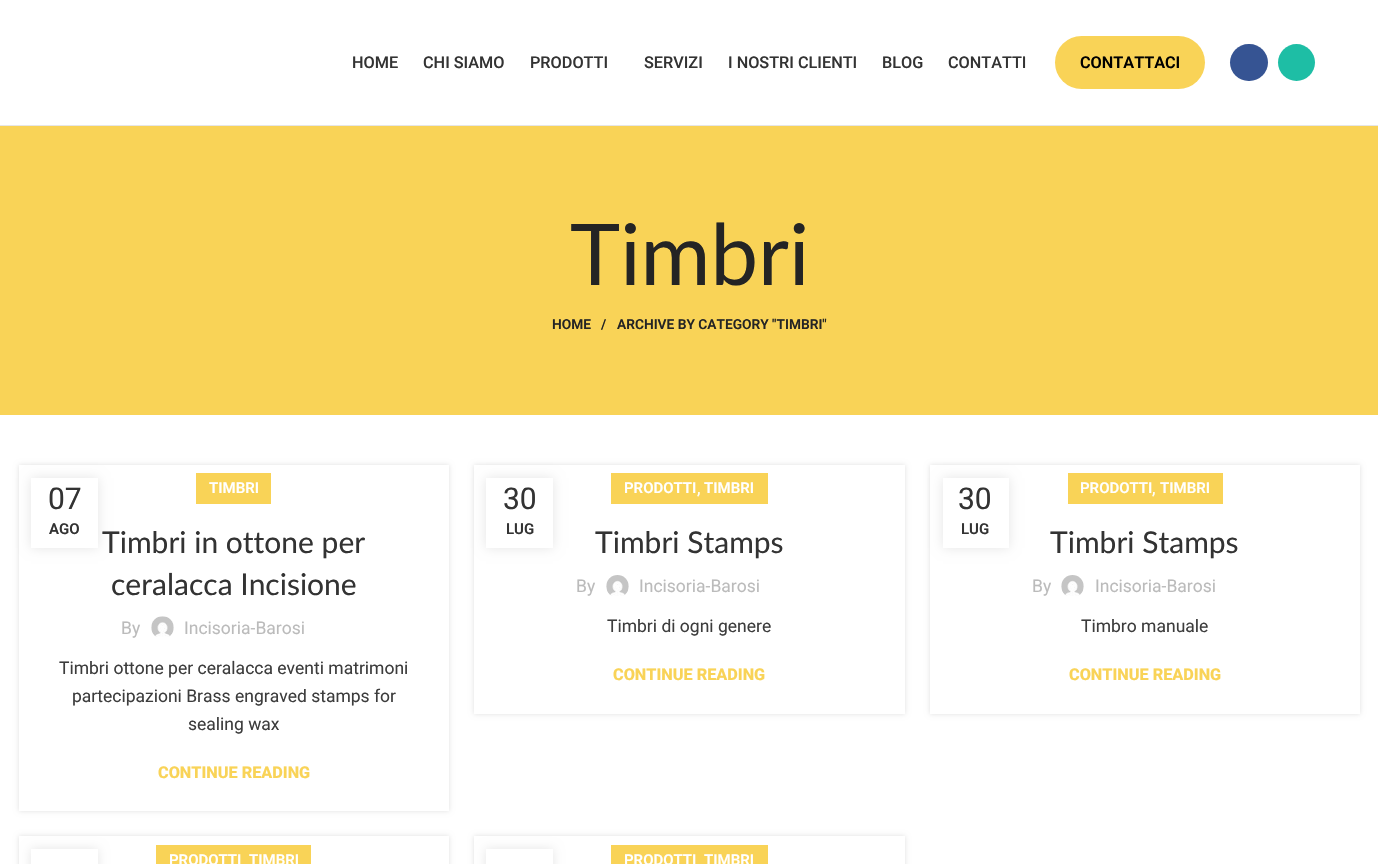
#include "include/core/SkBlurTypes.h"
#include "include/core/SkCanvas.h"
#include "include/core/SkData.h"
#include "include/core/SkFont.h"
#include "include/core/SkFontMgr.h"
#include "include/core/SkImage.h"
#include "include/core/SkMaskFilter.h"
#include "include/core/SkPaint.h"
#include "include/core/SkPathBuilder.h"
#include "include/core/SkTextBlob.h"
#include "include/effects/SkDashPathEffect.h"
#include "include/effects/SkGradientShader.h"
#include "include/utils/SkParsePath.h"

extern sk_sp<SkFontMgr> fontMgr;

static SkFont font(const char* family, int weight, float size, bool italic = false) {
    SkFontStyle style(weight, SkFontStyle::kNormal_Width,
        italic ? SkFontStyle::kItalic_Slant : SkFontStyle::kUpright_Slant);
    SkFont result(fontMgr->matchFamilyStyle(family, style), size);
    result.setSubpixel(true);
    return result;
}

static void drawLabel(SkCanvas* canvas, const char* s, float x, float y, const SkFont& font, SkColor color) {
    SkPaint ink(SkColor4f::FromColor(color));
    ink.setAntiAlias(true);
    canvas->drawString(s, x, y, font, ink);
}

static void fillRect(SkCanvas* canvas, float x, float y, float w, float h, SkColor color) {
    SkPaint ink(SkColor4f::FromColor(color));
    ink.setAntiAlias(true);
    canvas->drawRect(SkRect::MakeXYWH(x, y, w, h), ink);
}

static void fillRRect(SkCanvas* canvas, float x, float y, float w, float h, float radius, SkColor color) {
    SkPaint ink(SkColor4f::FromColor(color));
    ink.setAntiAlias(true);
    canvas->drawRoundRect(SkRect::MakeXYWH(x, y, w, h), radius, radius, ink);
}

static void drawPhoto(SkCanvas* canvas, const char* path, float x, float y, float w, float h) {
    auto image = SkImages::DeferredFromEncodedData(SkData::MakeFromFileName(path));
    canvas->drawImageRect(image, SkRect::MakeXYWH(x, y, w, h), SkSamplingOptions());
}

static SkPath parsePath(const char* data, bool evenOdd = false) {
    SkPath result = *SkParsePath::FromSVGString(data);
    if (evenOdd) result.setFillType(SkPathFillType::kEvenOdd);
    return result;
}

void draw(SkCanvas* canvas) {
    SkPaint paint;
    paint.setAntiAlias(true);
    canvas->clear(0xFFFFFFFF);
    fillRect(canvas, 0, 125, 1378, 1, 0xFFE6E6E6);
    SkFont font1 = font("Roboto", 500, 16.25f);
    drawLabel(canvas, "HOME", 352, 68, font1, 0xFF333333);
    drawLabel(canvas, "CHI SIAMO", 423, 68, font1, 0xFF333333);
    drawLabel(canvas, "PRODOTTI", 530, 68, font1, 0xFF333333);
    drawLabel(canvas, "SERVIZI", 644, 68, font1, 0xFF333333);
    drawLabel(canvas, "I NOSTRI CLIENTI", 728, 68, font1, 0xFF333333);
    drawLabel(canvas, "BLOG", 882, 68, font1, 0xFF333333);
    drawLabel(canvas, "CONTATTI", 948, 68, font1, 0xFF333333);
    fillRRect(canvas, 1055, 36, 150, 53, 26.5f, 0xFFF9D357);
    SkFont font2 = font("Roboto", 600, 16.25f);
    drawLabel(canvas, "CONTATTACI", 1080, 68, font2, 0xFF000000);
    fillRRect(canvas, 1230, 44, 38, 37, 18.5f, 0xFF365493);
    paint.setColor(0xFF1EBEA5);
    canvas->drawCircle(1296.5f, 62.5f, 18.5f, paint);
    fillRect(canvas, 0, 126, 1378, 289, 0xFFF9D357);
    SkFont font3 = font("Lato", 400, 85);
    drawLabel(canvas, "Timbri", 570, 285, font3, 0xFF242424);
    SkFont font4 = font("Roboto", 600, 13.75f);
    drawLabel(canvas, "HOME", 552, 329, font4, 0xFF242424);
    drawLabel(canvas, "/", 601, 329, font4, 0xFF242424);
    drawLabel(canvas, "ARCHIVE BY CATEGORY \"TIMBRI\"", 617, 329, font4, 0xFF242424);
    canvas->save();
    canvas->clipPath(parsePath("M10 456H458V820H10ZM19 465H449V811H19Z", true), true);
    paint.setColor(0x1F000000);
    paint.setMaskFilter(SkMaskFilter::MakeBlur(kNormal_SkBlurStyle, 2.5f));
    canvas->drawRect(SkRect::MakeXYWH(19, 465, 430, 346), paint);
    paint.setMaskFilter(nullptr);
    canvas->restore();
    fillRect(canvas, 448, 489, 1, 322, 0xFFFFFFFF);
    fillRect(canvas, 196, 473, 75, 31, 0xFFF9D357);
    SkFont font5 = font("Roboto", 600, 15);
    drawLabel(canvas, "TIMBRI", 209, 493, font5, 0xFFFFFFFF);
    SkFont font6 = font("Lato", 400, 30);
    drawLabel(canvas, "Timbri in ottone per", 102, 553, font6, 0xFF333333);
    drawLabel(canvas, "ceralacca Incisione", 111, 595, font6, 0xFF333333);
    SkFont font7 = font("Roboto", 400, 17.5f);
    drawLabel(canvas, "By", 121, 634, font7, 0xFFBBBBBB);
    drawPhoto(canvas, "assets/img1.png", 151, 616, 23, 21);
    drawLabel(canvas, "Incisoria-Barosi", 184, 634, font7, 0xFFBBBBBB);
    drawLabel(canvas, "Timbri ottone per ceralacca eventi matrimoni", 59, 674, font7, 0xFF3D3D3D);
    drawLabel(canvas, "partecipazioni Brass engraved stamps for", 72, 702, font7, 0xFF3D3D3D);
    drawLabel(canvas, "sealing wax", 188, 730, font7, 0xFF3D3D3D);
    SkFont font8 = font("Roboto", 800, 16.25f);
    drawLabel(canvas, "CONTINUE READING", 158, 778, font8, 0xFFF9D357);
    paint.setColor(0x1A000000);
    paint.setMaskFilter(SkMaskFilter::MakeBlur(kNormal_SkBlurStyle, 5.5f));
    canvas->drawRect(SkRect::MakeXYWH(31, 478, 67, 70), paint);
    paint.setMaskFilter(nullptr);
    fillRect(canvas, 31, 478, 67, 70, 0xFFFFFFFF);
    SkFont font9 = font("Roboto", 400, 30);
    drawLabel(canvas, "07", 48, 509, font9, 0xFF333333);
    drawLabel(canvas, "AGO", 49, 534, font5, 0xFF333333);
    canvas->save();
    canvas->clipPath(parsePath("M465 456H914V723H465ZM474 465H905V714H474Z", true), true);
    paint.setColor(0x1F000000);
    paint.setMaskFilter(SkMaskFilter::MakeBlur(kNormal_SkBlurStyle, 2.5f));
    canvas->drawRect(SkRect::MakeXYWH(474, 465, 431, 249), paint);
    paint.setMaskFilter(nullptr);
    canvas->restore();
    paint.setColor(0x1A000000);
    paint.setMaskFilter(SkMaskFilter::MakeBlur(kNormal_SkBlurStyle, 5.5f));
    canvas->drawRect(SkRect::MakeXYWH(486, 478, 67, 70), paint);
    paint.setMaskFilter(nullptr);
    fillRect(canvas, 486, 478, 67, 70, 0xFFFFFFFF);
    drawLabel(canvas, "30", 503, 509, font9, 0xFF333333);
    drawLabel(canvas, "LUG", 506, 534, font5, 0xFF333333);
    fillRect(canvas, 474, 713, 431, 1, 0xFFFFFFFF);
    fillRect(canvas, 611, 473, 157, 31, 0xFFF9D357);
    drawLabel(canvas, "PRODOTTI", 624, 493, font5, 0xFFFFFFFF);
    drawLabel(canvas, "TIMBRI", 704, 493, font5, 0xFFFFFFFF);
    drawLabel(canvas, ",", 697, 494, font7, 0xFFFFFFFF);
    drawLabel(canvas, "Timbri Stamps", 595, 553, font6, 0xFF333333);
    drawLabel(canvas, "By", 576, 592, font7, 0xFFBBBBBB);
    drawPhoto(canvas, "assets/img2.png", 606, 575, 23, 21);
    drawLabel(canvas, "Incisoria-Barosi", 639, 592, font7, 0xFFBBBBBB);
    drawLabel(canvas, "Timbri di ogni genere", 607, 632, font7, 0xFF3D3D3D);
    drawLabel(canvas, "CONTINUE READING", 613, 680, font8, 0xFFF9D357);
    canvas->save();
    canvas->clipPath(parsePath("M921 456H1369V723H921ZM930 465H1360V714H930Z", true), true);
    paint.setColor(0x1F000000);
    paint.setMaskFilter(SkMaskFilter::MakeBlur(kNormal_SkBlurStyle, 2.5f));
    canvas->drawRect(SkRect::MakeXYWH(930, 465, 430, 249), paint);
    paint.setMaskFilter(nullptr);
    canvas->restore();
    paint.setColor(0x1A000000);
    paint.setMaskFilter(SkMaskFilter::MakeBlur(kNormal_SkBlurStyle, 5.5f));
    canvas->drawRect(SkRect::MakeXYWH(943, 478, 66, 70), paint);
    paint.setMaskFilter(nullptr);
    fillRect(canvas, 943, 478, 66, 70, 0xFFFFFFFF);
    drawLabel(canvas, "30", 958, 509, font9, 0xFF333333);
    drawLabel(canvas, "LUG", 961, 534, font5, 0xFF333333);
    fillRect(canvas, 930, 713, 430, 1, 0xFFFFFFFF);
    fillRect(canvas, 1068, 473, 155, 31, 0xFFF9D357);
    drawLabel(canvas, "PRODOTTI", 1080, 493, font5, 0xFFFFFFFF);
    drawLabel(canvas, "TIMBRI", 1160, 493, font5, 0xFFFFFFFF);
    drawLabel(canvas, ",", 1152, 494, font7, 0xFFFFFFFF);
    drawLabel(canvas, "Timbri Stamps", 1050, 553, font6, 0xFF333333);
    drawLabel(canvas, "By", 1032, 592, font7, 0xFFBBBBBB);
    drawPhoto(canvas, "assets/img2.png", 1061, 575, 23, 21);
    drawLabel(canvas, "Incisoria-Barosi", 1095, 592, font7, 0xFFBBBBBB);
    drawLabel(canvas, "Timbro manuale", 1081, 632, font7, 0xFF3D3D3D);
    drawLabel(canvas, "CONTINUE READING", 1069, 680, font8, 0xFFF9D357);
    canvas->save();
    canvas->clipPath(parsePath("M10 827H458V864H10ZM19 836H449V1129H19Z", true), true);
    paint.setColor(0x1F000000);
    paint.setMaskFilter(SkMaskFilter::MakeBlur(kNormal_SkBlurStyle, 2.5f));
    canvas->drawRect(SkRect::MakeXYWH(19, 836, 430, 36), paint);
    paint.setMaskFilter(nullptr);
    canvas->restore();
    paint.setColor(0x1A000000);
    paint.setMaskFilter(SkMaskFilter::MakeBlur(kNormal_SkBlurStyle, 5.5f));
    canvas->drawRect(SkRect::MakeXYWH(31, 849, 67, 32), paint);
    paint.setMaskFilter(nullptr);
    fillRect(canvas, 31, 849, 67, 15, 0xFFFFFFFF);
    fillRect(canvas, 448, 861, 1, 3, 0xFFFFFFFF);
    fillRect(canvas, 156, 845, 155, 19, 0xFFF9D357);
    drawLabel(canvas, "PRODOTTI", 169, 865, font5, 0xFFFFFFFF);
    drawLabel(canvas, "TIMBRI", 249, 865, font5, 0xFFFFFFFF);
    canvas->save();
    canvas->clipPath(parsePath("M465 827H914V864H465ZM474 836H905V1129H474Z", true), true);
    paint.setColor(0x1F000000);
    paint.setMaskFilter(SkMaskFilter::MakeBlur(kNormal_SkBlurStyle, 2.5f));
    canvas->drawRect(SkRect::MakeXYWH(474, 836, 431, 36), paint);
    paint.setMaskFilter(nullptr);
    canvas->restore();
    paint.setColor(0x1A000000);
    paint.setMaskFilter(SkMaskFilter::MakeBlur(kNormal_SkBlurStyle, 5.5f));
    canvas->drawRect(SkRect::MakeXYWH(486, 849, 67, 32), paint);
    paint.setMaskFilter(nullptr);
    fillRect(canvas, 486, 849, 67, 15, 0xFFFFFFFF);
    fillRect(canvas, 611, 845, 157, 19, 0xFFF9D357);
    drawLabel(canvas, "PRODOTTI", 624, 865, font5, 0xFFFFFFFF);
    drawLabel(canvas, "TIMBRI", 704, 865, font5, 0xFFFFFFFF);
}
